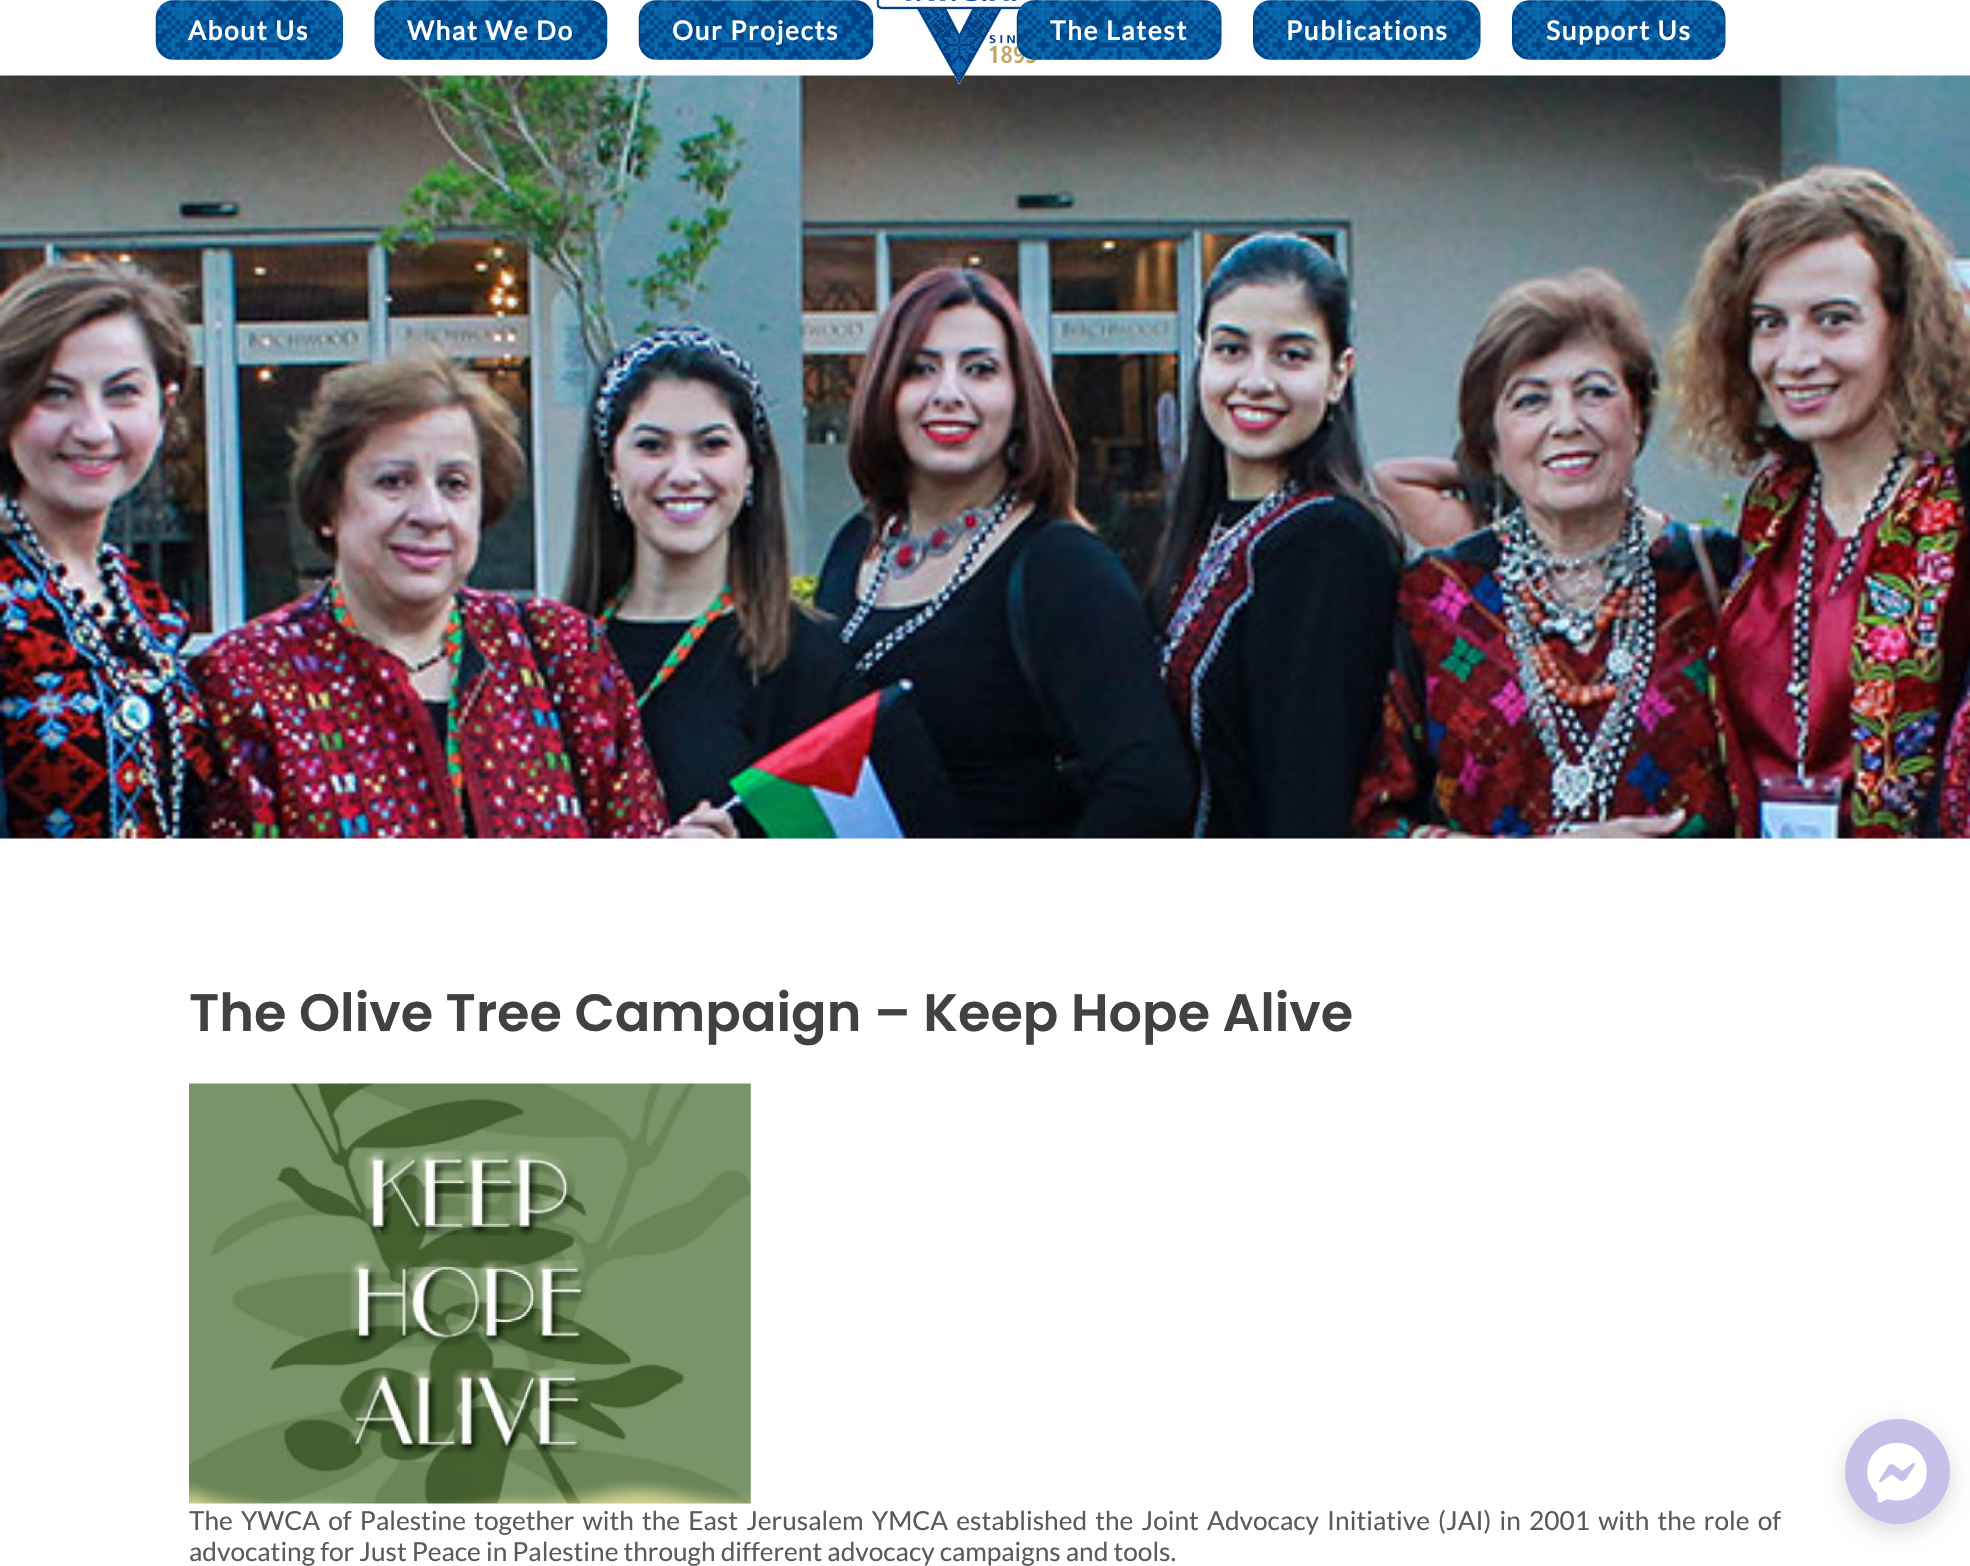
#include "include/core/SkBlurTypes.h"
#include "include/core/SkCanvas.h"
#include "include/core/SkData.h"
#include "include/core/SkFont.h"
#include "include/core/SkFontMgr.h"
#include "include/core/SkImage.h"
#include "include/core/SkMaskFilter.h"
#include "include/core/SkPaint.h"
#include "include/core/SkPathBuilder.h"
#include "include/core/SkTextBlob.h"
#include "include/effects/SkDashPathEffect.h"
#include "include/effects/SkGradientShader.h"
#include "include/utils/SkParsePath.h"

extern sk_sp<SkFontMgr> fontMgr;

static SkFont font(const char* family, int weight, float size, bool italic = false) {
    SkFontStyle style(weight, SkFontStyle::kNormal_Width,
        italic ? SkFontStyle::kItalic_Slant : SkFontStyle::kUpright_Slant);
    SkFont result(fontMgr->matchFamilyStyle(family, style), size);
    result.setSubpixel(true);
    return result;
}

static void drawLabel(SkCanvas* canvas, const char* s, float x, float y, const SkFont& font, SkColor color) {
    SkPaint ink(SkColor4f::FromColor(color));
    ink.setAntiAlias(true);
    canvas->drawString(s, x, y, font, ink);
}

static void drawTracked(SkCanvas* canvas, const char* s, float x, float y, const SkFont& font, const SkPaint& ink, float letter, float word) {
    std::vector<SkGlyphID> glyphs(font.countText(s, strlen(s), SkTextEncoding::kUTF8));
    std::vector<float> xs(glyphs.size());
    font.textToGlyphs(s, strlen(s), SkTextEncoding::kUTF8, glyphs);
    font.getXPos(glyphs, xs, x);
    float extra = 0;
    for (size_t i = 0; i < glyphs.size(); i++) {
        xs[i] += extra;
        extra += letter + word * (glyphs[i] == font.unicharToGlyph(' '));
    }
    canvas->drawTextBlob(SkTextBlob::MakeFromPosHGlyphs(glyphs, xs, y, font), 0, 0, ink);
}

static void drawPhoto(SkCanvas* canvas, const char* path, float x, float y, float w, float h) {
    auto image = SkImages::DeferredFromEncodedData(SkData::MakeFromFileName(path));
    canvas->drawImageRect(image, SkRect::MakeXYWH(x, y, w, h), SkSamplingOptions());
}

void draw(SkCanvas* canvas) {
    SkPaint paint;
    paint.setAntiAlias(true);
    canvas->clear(0xFFFFFFFF);
    drawPhoto(canvas, "assets/img8.png", 0, 75, 1970, 764);
    drawPhoto(canvas, "assets/img1.png", 876, 0, 162, 85);
    drawPhoto(canvas, "assets/img2.png", 155, 0, 188, 60);
    SkFont font1 = font("Lato", 700, 26.25f);
    paint.setColor(0xFFFFFFFF);
    drawTracked(canvas, "About Us", 188, 40, font1, paint, 1.75f, 0);
    drawPhoto(canvas, "assets/img3.png", 374, 0, 234, 60);
    drawTracked(canvas, "What We Do", 407, 40, font1, paint, 1.75f, 0);
    drawPhoto(canvas, "assets/img4.png", 638, 0, 236, 60);
    drawTracked(canvas, "Our Projects", 672, 40, font1, paint, 1.75f, 0);
    drawPhoto(canvas, "assets/img5.png", 1016, 0, 206, 60);
    drawTracked(canvas, "The Latest", 1050, 40, font1, paint, 1.75f, 0);
    drawPhoto(canvas, "assets/img6.png", 1253, 0, 228, 60);
    drawTracked(canvas, "Publications", 1286, 40, font1, paint, 1.75f, 0);
    drawPhoto(canvas, "assets/img7.png", 1512, 0, 214, 60);
    drawTracked(canvas, "Support Us", 1546, 40, font1, paint, 1.75f, 0);
    SkFont font2 = font("Poppins", 600, 52.5f);
    drawLabel(canvas, "The Olive Tree Campaign – Keep Hope Alive", 189, 1031, font2, 0xFF414141);
    drawPhoto(canvas, "assets/img9.png", 189, 1083, 562, 421);
    SkFont font3 = font("Lato", 400, 26.25f);
    paint.setColor(0xFF5A5A5A);
    drawTracked(canvas, "The YWCA of Palestine together with the East Jerusalem YMCA established the Joint Advocacy Initiative (JAI) in 2001 with the role of", 189, 1530, font3, paint, 0, 3.1f);
    drawLabel(canvas, "advocating for Just Peace in Palestine through different advocacy campaigns and tools.", 189, 1561, font3, 0xFF5A5A5A);
    paint.setColor(0x26000000);
    paint.setMaskFilter(SkMaskFilter::MakeBlur(kNormal_SkBlurStyle, 10.5f));
    canvas->drawRoundRect(SkRect::MakeXYWH(1845, 1426, 105, 105), 52.5f, 52.5f, paint);
    paint.setMaskFilter(nullptr);
    paint.setColor(0xFFC5C1E9);
    canvas->drawCircle(1897.5f, 1471.5f, 52.5f, paint);
    drawPhoto(canvas, "assets/img10.png", 1867, 1442, 60, 61);
}
